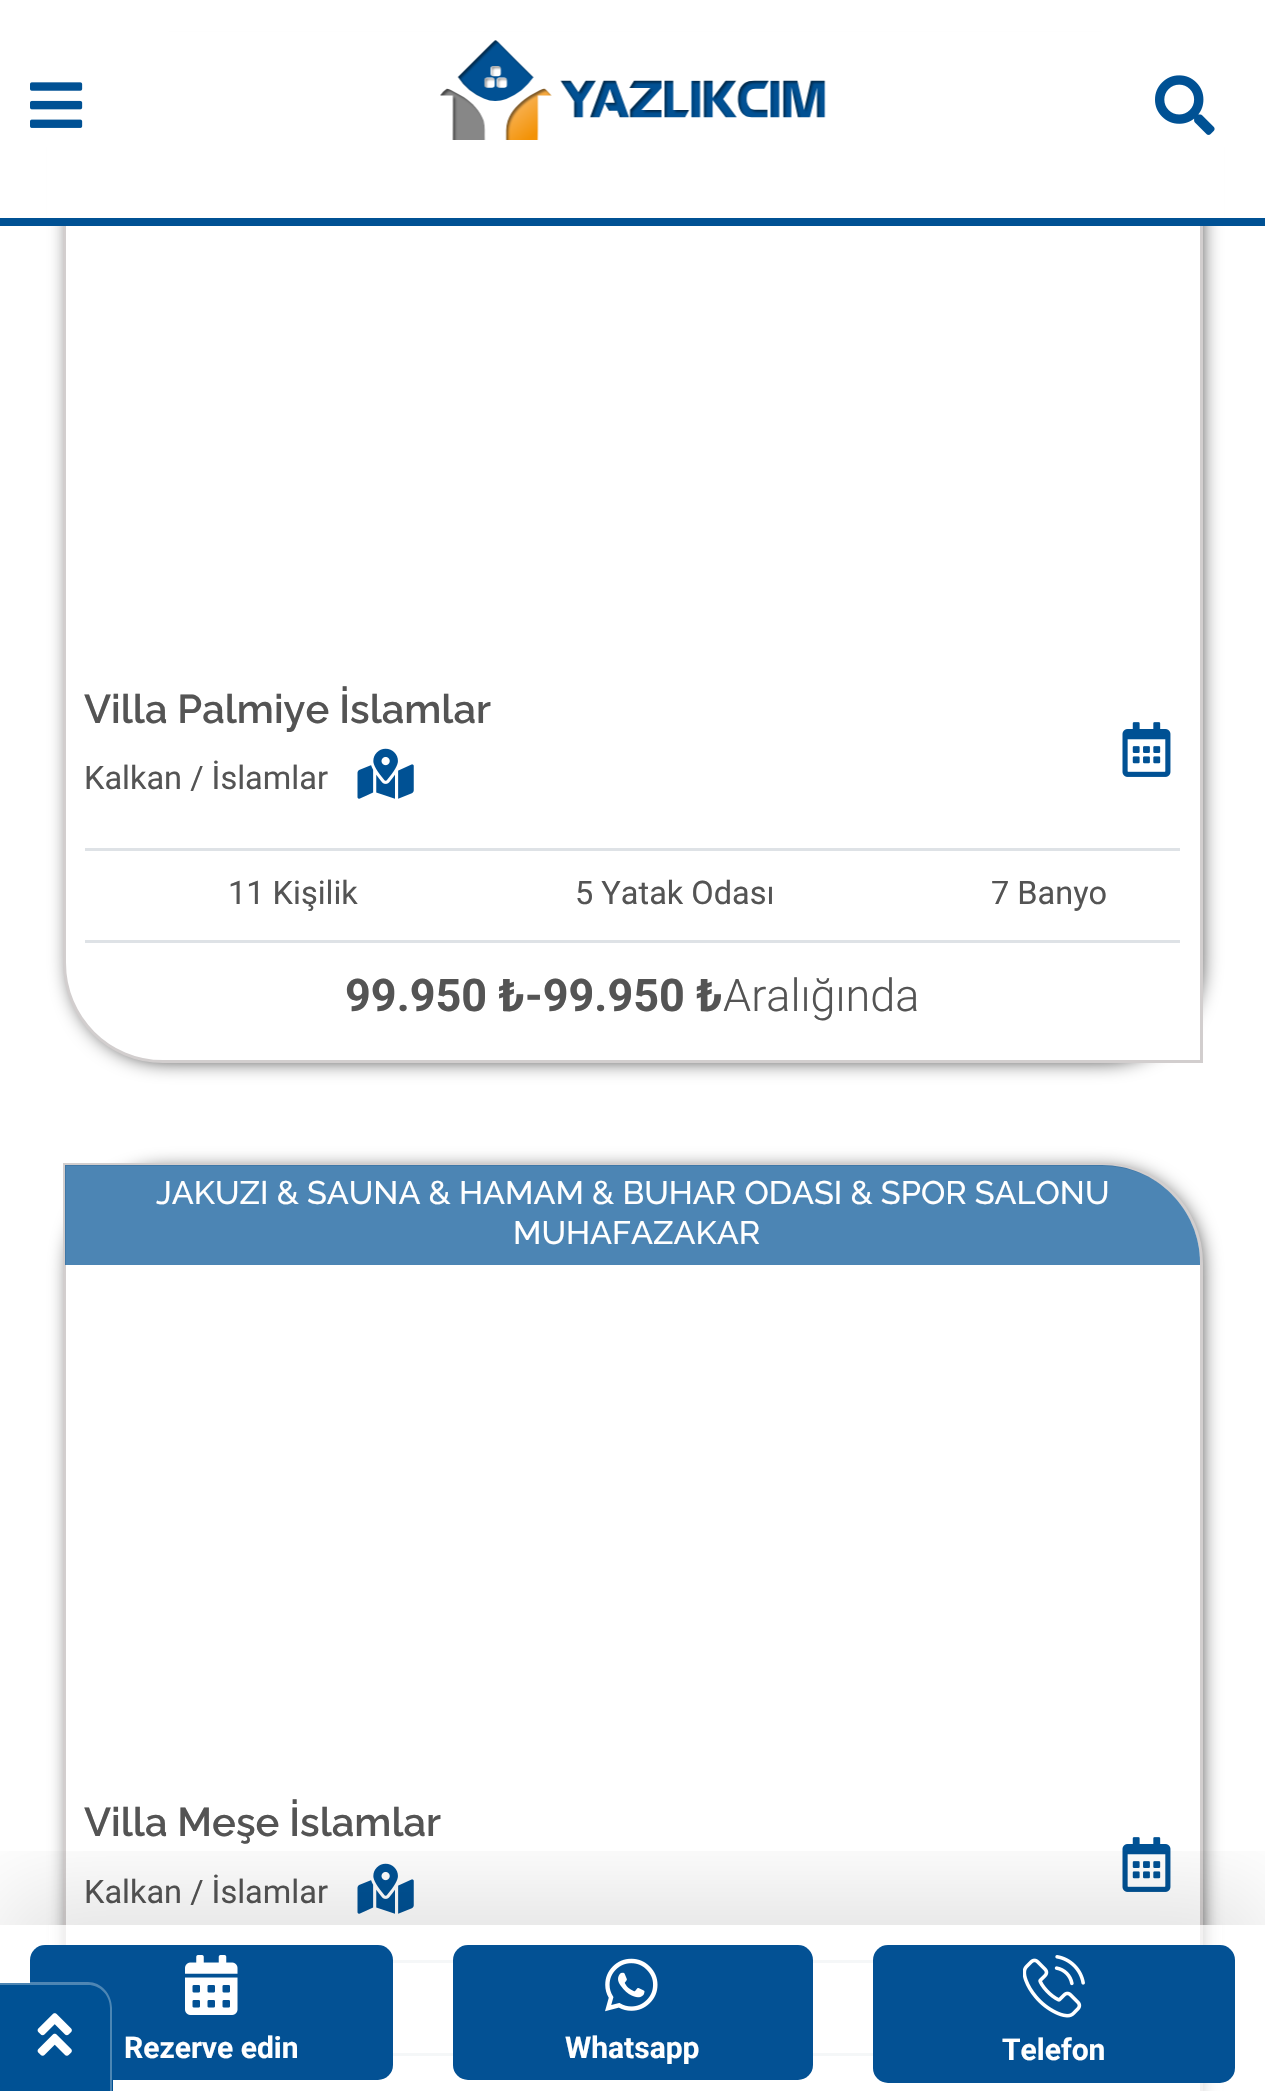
#include "include/core/SkBlurTypes.h"
#include "include/core/SkCanvas.h"
#include "include/core/SkData.h"
#include "include/core/SkFont.h"
#include "include/core/SkFontMgr.h"
#include "include/core/SkImage.h"
#include "include/core/SkMaskFilter.h"
#include "include/core/SkPaint.h"
#include "include/core/SkPathBuilder.h"
#include "include/core/SkTextBlob.h"
#include "include/effects/SkDashPathEffect.h"
#include "include/effects/SkGradientShader.h"
#include "include/utils/SkParsePath.h"

extern sk_sp<SkFontMgr> fontMgr;

static SkFont font(const char* family, int weight, float size, bool italic = false) {
    SkFontStyle style(weight, SkFontStyle::kNormal_Width,
        italic ? SkFontStyle::kItalic_Slant : SkFontStyle::kUpright_Slant);
    SkFont result(fontMgr->matchFamilyStyle(family, style), size);
    result.setSubpixel(true);
    return result;
}

static void drawLabel(SkCanvas* canvas, const char* s, float x, float y, const SkFont& font, SkColor color) {
    SkPaint ink(SkColor4f::FromColor(color));
    ink.setAntiAlias(true);
    canvas->drawString(s, x, y, font, ink);
}

static void fillRect(SkCanvas* canvas, float x, float y, float w, float h, SkColor color) {
    SkPaint ink(SkColor4f::FromColor(color));
    ink.setAntiAlias(true);
    canvas->drawRect(SkRect::MakeXYWH(x, y, w, h), ink);
}

static void fillRRect(SkCanvas* canvas, float x, float y, float w, float h, float radius, SkColor color) {
    SkPaint ink(SkColor4f::FromColor(color));
    ink.setAntiAlias(true);
    canvas->drawRoundRect(SkRect::MakeXYWH(x, y, w, h), radius, radius, ink);
}

static void drawPhoto(SkCanvas* canvas, const char* path, float x, float y, float w, float h) {
    auto image = SkImages::DeferredFromEncodedData(SkData::MakeFromFileName(path));
    canvas->drawImageRect(image, SkRect::MakeXYWH(x, y, w, h), SkSamplingOptions());
}

static SkPath parsePath(const char* data, bool evenOdd = false) {
    SkPath result = *SkParsePath::FromSVGString(data);
    if (evenOdd) result.setFillType(SkPathFillType::kEvenOdd);
    return result;
}

void draw(SkCanvas* canvas) {
    SkPaint paint;
    paint.setAntiAlias(true);
    canvas->clear(0xFFFFFFFF);
    paint.setColor(0xFF000000);
    paint.setMaskFilter(SkMaskFilter::MakeBlur(kNormal_SkBlurStyle, 11));
    canvas->drawRoundRect(SkRect::MakeXYWH(73, 58, 1125, 1000), 93, 93, paint);
    paint.setMaskFilter(nullptr);
    paint.setColor(0xFFFFFFFF);
    canvas->drawPath(parsePath("M64.5 49.5H1103C1157.5 49.5 1201.5 93.5 1201.5 148V1061.5H163C108.5 1061.5 64.5 1017.5 64.5 963Z"), paint);
    paint.setStroke(true);
    paint.setStrokeWidth(3);
    paint.setColor(0xFFD2CECE);
    canvas->drawPath(parsePath("M64.5 49.5H1103C1157.5 49.5 1201.5 93.5 1201.5 148V1061.5H163C108.5 1061.5 64.5 1017.5 64.5 963Z"), paint);
    fillRect(canvas, 47, 32, 1177, 186, 0xFFFFFFFF);
    fillRect(canvas, 0, 218, 1265, 8, 0xFF005194);
    drawPhoto(canvas, "assets/img1.png", 30, 82, 53, 46);
    drawPhoto(canvas, "assets/img2.png", 440, 40, 386, 100);
    drawPhoto(canvas, "assets/img3.png", 1155, 75, 60, 60);
    SkFont font1 = font("Raleway", 600, 40);
    drawLabel(canvas, "Villa Palmiye İslamlar", 84, 723, font1, 0xFF545454);
    SkFont font2 = font("Roboto", 400, 32.5f);
    drawLabel(canvas, "Kalkan / İslamlar", 84, 789, font2, 0xFF545454);
    drawPhoto(canvas, "assets/img4.png", 357, 748, 57, 51);
    drawPhoto(canvas, "assets/img5.png", 1122, 722, 49, 55);
    fillRect(canvas, 85, 848, 1095, 3, 0xFFDEE2E6);
    fillRect(canvas, 85, 940, 1095, 3, 0xFFDEE2E6);
    drawLabel(canvas, "11 Kişilik", 228, 904, font2, 0xFF545454);
    drawLabel(canvas, "5 Yatak Odası", 575, 904, font2, 0xFF545454);
    drawLabel(canvas, "7 Banyo", 991, 904, font2, 0xFF545454);
    SkFont font3 = font("Roboto", 700, 45);
    drawLabel(canvas, "99.950 ₺-99.950 ₺", 345, 1011, font3, 0xFF545454);
    SkFont font4 = font("Roboto", 300, 45);
    drawLabel(canvas, "Aralığında", 723, 1011, font4, 0xFF545454);
    paint.setStroke(false);
    paint.setColor(0xFF000000);
    paint.setMaskFilter(SkMaskFilter::MakeBlur(kNormal_SkBlurStyle, 11));
    canvas->drawRoundRect(SkRect::MakeXYWH(73, 1173, 1125, 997), 93, 93, paint);
    paint.setMaskFilter(nullptr);
    paint.setColor(0xFFFFFFFF);
    canvas->drawPath(parsePath("M64.5 1164.5H1103C1157.5 1164.5 1201.5 1208.5 1201.5 1263V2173.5H163C108.5 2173.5 64.5 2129.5 64.5 2075Z"), paint);
    paint.setStroke(true);
    paint.setColor(0xFFD2CECE);
    canvas->drawPath(parsePath("M64.5 1164.5H1103C1157.5 1164.5 1201.5 1208.5 1201.5 1263V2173.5H163C108.5 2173.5 64.5 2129.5 64.5 2075Z"), paint);
    paint.setStroke(false);
    paint.setColor(0xB3005194);
    canvas->drawPath(parsePath("M65 1165H1102C1156 1165 1200 1209 1200 1263V1265H65Z"), paint);
    SkFont font5 = font("Raleway", 500, 32.5f);
    drawLabel(canvas, "JAKUZI & SAUNA & HAMAM & BUHAR ODASI & SPOR SALONU", 156, 1204, font5, 0xFFFFFFFF);
    drawLabel(canvas, "MUHAFAZAKAR", 513, 1244, font5, 0xFFFFFFFF);
    drawLabel(canvas, "Villa Meşe İslamlar", 84, 1836, font1, 0xFF545454);
    drawLabel(canvas, "Kalkan / İslamlar", 84, 1903, font2, 0xFF545454);
    drawPhoto(canvas, "assets/img4.png", 357, 1863, 57, 51);
    drawPhoto(canvas, "assets/img5.png", 1122, 1837, 49, 55);
    fillRect(canvas, 393, 1960, 480, 3, 0xFFDEE2E6);
    fillRect(canvas, 393, 2053, 480, 3, 0xFFDEE2E6);
    canvas->save();
    canvas->clipRect(SkRect::MakeXYWH(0, 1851, 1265, 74));
    paint.setColor(0x1A000000);
    paint.setMaskFilter(SkMaskFilter::MakeBlur(kNormal_SkBlurStyle, 44));
    canvas->drawRect(SkRect::MakeXYWH(0, 1888, 1265, 167), paint);
    paint.setMaskFilter(nullptr);
    canvas->restore();
    fillRect(canvas, 49, 1925, 1173, 166, 0xB3FFFFFF);
    fillRRect(canvas, 30, 1945, 363, 135, 15, 0xFF035194);
    paint.setColor(0xFF005194);
    canvas->drawPath(parsePath("M0 1983H88C102 1983 113 1994 113 2008V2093H0Z"), paint);
    paint.setColor(0x4DFFFFFF);
    canvas->drawPath(parsePath("M0 1982H88C101 1982 112 1994 112 2008V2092H0ZM0 1985H88C100 1985 110 1995 110 2008V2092H0Z", true), paint);
    drawPhoto(canvas, "assets/img6.png", 37, 2013, 35, 43);
    drawPhoto(canvas, "assets/img7.png", 185, 1955, 53, 60);
    SkFont font6 = font("Roboto", 700, 30);
    drawLabel(canvas, "Rezerve edin", 124, 2058, font6, 0xFFFFFFFF);
    fillRRect(canvas, 453, 1945, 360, 135, 15, 0xFF035194);
    drawPhoto(canvas, "assets/img8.png", 605, 1958, 53, 54);
    drawLabel(canvas, "Whatsapp", 565, 2058, font6, 0xFFFFFFFF);
    fillRRect(canvas, 873, 1945, 362, 138, 15, 0xFF035194);
    drawPhoto(canvas, "assets/img9.png", 1023, 1955, 62, 63);
    drawLabel(canvas, "Telefon", 1002, 2060, font6, 0xFFFFFFFF);
}
